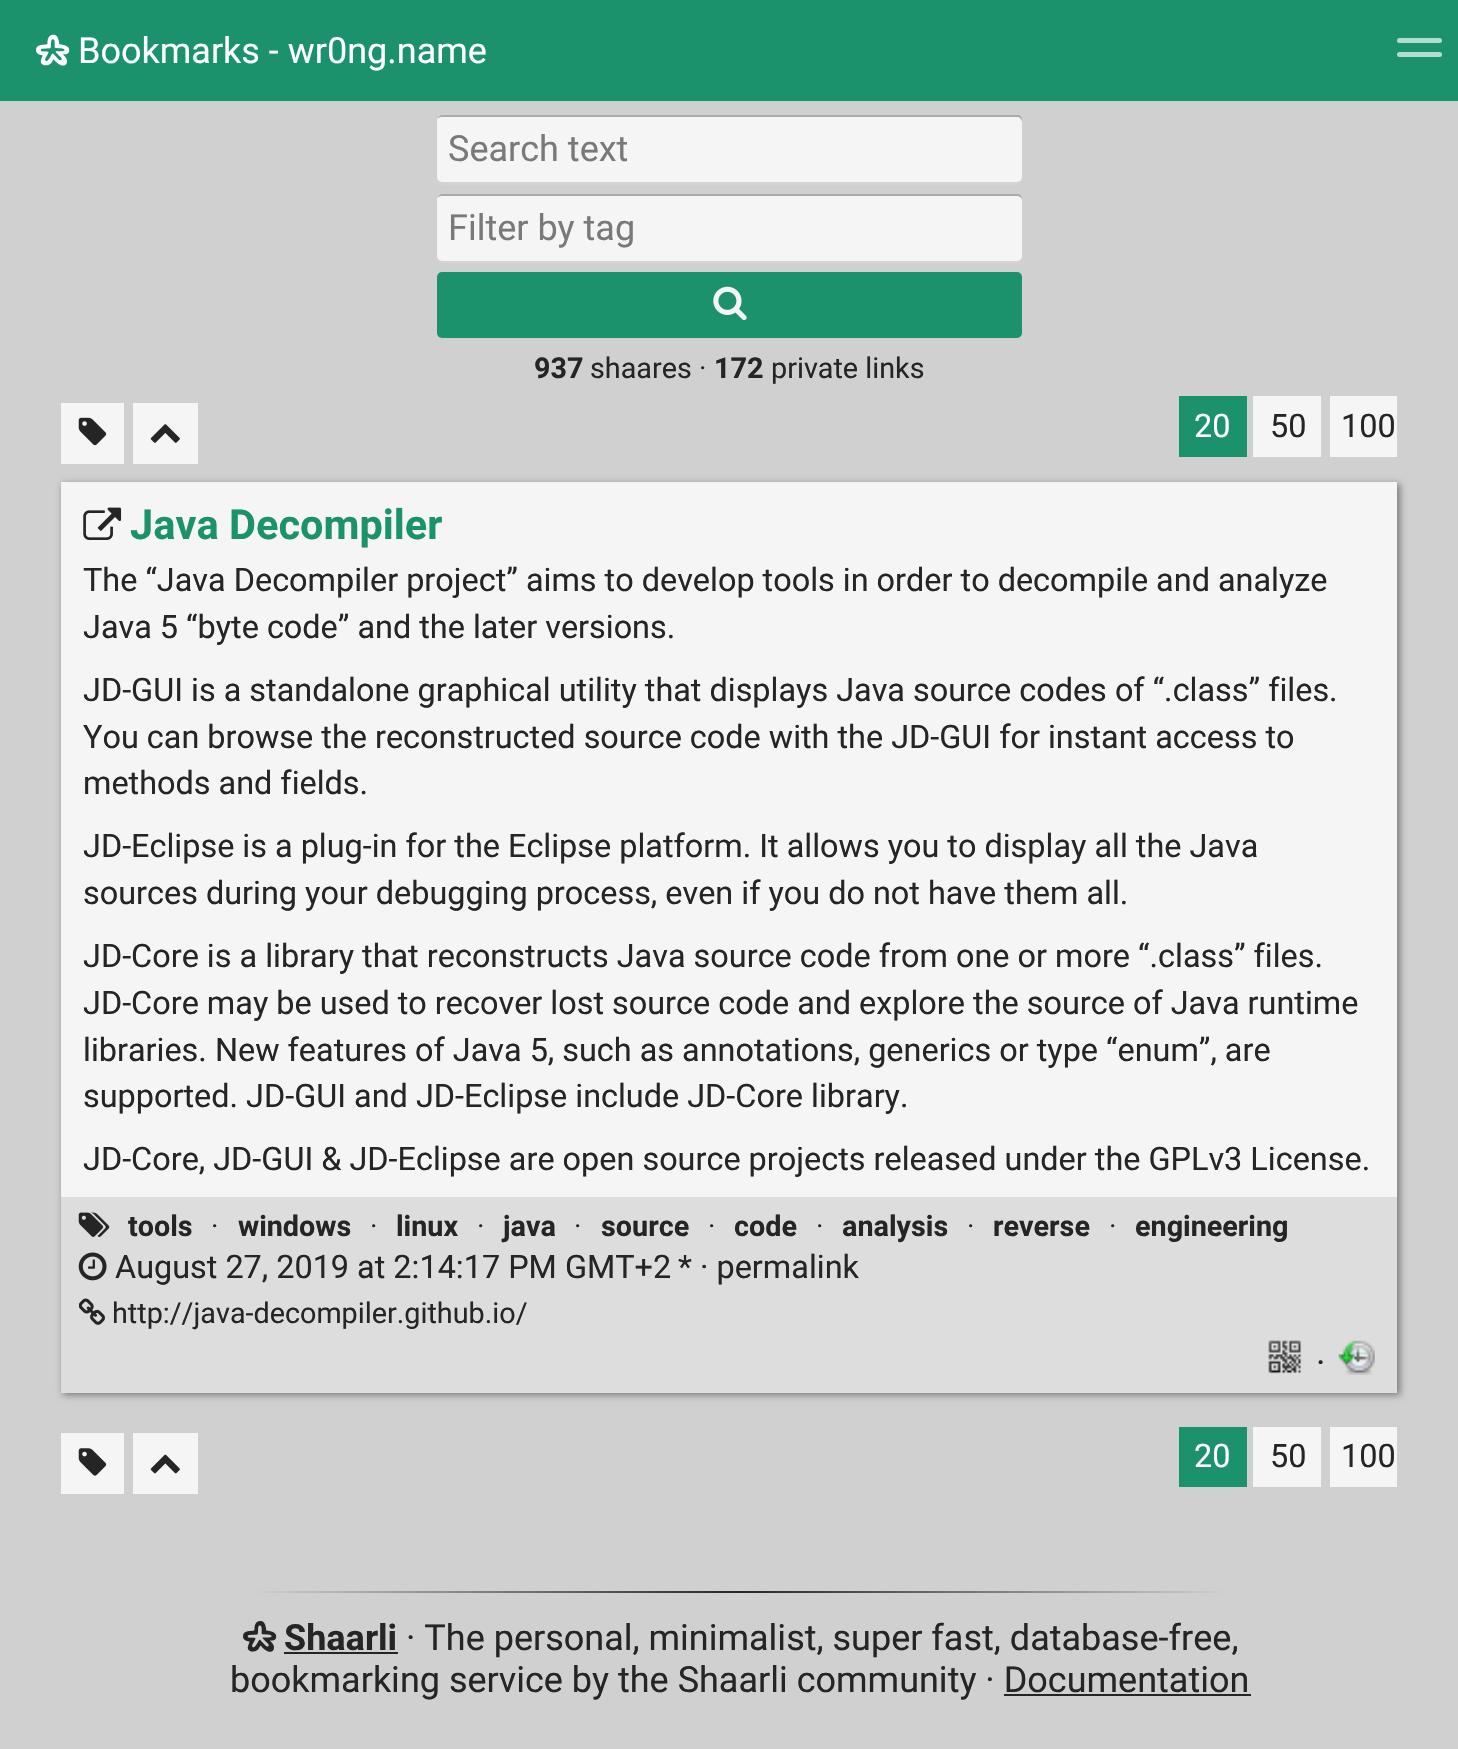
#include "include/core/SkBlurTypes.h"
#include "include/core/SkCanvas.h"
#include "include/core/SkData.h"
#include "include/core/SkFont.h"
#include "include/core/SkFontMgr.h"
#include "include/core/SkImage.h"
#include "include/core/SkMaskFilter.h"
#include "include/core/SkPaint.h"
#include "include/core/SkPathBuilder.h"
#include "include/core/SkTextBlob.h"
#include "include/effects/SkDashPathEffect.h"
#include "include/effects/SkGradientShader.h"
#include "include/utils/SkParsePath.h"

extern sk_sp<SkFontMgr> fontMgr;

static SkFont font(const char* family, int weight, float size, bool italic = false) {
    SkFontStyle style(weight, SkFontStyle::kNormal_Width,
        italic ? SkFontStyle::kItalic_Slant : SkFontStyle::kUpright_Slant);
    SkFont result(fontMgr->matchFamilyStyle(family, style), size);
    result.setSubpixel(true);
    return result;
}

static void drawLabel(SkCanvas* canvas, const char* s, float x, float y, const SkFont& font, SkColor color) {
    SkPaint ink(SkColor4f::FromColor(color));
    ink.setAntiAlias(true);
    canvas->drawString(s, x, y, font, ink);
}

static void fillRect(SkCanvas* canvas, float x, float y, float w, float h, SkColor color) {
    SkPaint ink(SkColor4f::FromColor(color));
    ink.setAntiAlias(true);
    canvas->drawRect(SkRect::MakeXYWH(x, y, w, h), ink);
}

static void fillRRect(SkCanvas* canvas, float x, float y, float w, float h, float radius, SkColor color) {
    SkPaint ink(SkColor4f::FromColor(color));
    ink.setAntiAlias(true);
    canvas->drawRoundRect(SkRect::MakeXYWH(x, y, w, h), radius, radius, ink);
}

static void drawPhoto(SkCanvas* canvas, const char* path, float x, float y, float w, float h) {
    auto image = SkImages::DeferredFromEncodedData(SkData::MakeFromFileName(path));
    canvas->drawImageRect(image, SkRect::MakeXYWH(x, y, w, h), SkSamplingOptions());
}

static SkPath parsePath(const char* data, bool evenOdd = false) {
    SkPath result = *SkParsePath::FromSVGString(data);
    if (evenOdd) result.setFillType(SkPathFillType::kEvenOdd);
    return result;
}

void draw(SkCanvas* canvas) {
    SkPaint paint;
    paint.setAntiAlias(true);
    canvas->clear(0xFFD0D0D0);
    fillRect(canvas, 0, 0, 1458, 101, 0xFF1B926C);
    drawPhoto(canvas, "assets/img1.png", 36, 34, 34, 32);
    SkFont font1 = font("Roboto", 400, 36);
    drawLabel(canvas, "Bookmarks - wr0ng.name", 78, 63, font1, 0xFFFFFFFF);
    fillRRect(canvas, 1397, 38, 45, 5, 2.5f, 0xFFB0DDCE);
    fillRRect(canvas, 1397, 52, 45, 5, 2.5f, 0xFFB0DDCE);
    paint.setColor(0xFFD4D4D4);
    canvas->drawPath(parsePath("M437 180C437 183 439 185 442 185H1017C1020 185 1022 183 1022 180V122V120V178C1022 180 1019 182 1017 182H441C439 182 438 181 437 180Z"), paint);
    fillRRect(canvas, 437, 115, 585, 67, 5, 0xFFF5F5F5);
    paint.setColor(0x4D000000);
    canvas->drawPath(parsePath("M441 117H1017C1019 117 1022 119 1022 122V120C1022 117 1020 115 1017 115H442C440 115 438 117 437 119C438 118 440 117 441 117Z"), paint);
    drawLabel(canvas, "Search text", 448, 161, font1, 0xFF797979);
    paint.setColor(0xFFD4D4D4);
    canvas->drawPath(parsePath("M437 259C437 261 439 263 442 263H1017C1020 263 1022 261 1022 258V201V199V256C1022 259 1019 261 1017 261H441C439 261 438 260 437 259Z"), paint);
    fillRRect(canvas, 437, 194, 585, 67, 5, 0xFFF5F5F5);
    paint.setColor(0x4D000000);
    canvas->drawPath(parsePath("M441 196H1017C1019 196 1022 198 1022 200V199C1022 196 1020 194 1017 194H442C440 194 438 196 437 198C438 197 440 196 441 196Z"), paint);
    drawLabel(canvas, "Filter by tag", 448, 240, font1, 0xFF797979);
    fillRRect(canvas, 437, 272, 585, 66, 5, 0xFF1B926C);
    drawPhoto(canvas, "assets/img2.png", 713, 286, 34, 35);
    SkFont font2 = font("Roboto", 700, 28.75f);
    drawLabel(canvas, "937", 534, 378, font2, 0xFF252525);
    SkFont font3 = font("Roboto", 400, 28.75f);
    drawLabel(canvas, "shaares ·", 590, 378, font3, 0xFF252525);
    drawLabel(canvas, "172", 714, 378, font2, 0xFF252525);
    drawLabel(canvas, "private links", 771, 378, font3, 0xFF252525);
    fillRect(canvas, 61, 403, 63, 61, 0xFFF5F5F5);
    drawPhoto(canvas, "assets/img3.png", 78, 417, 29, 29);
    fillRect(canvas, 133, 403, 65, 61, 0xFFF5F5F5);
    drawPhoto(canvas, "assets/img4.png", 150, 424, 30, 19);
    fillRect(canvas, 1179, 396, 68, 61, 0xFF1B926C);
    SkFont font4 = font("Roboto", 400, 32.4f);
    drawLabel(canvas, "20", 1194, 437, font4, 0xFFFFFFFF);
    fillRect(canvas, 1253, 396, 68, 61, 0xFFF5F5F5);
    drawLabel(canvas, "50", 1270, 437, font4, 0xFF252525);
    fillRect(canvas, 1330, 396, 67, 61, 0xFFF5F5F5);
    drawLabel(canvas, "100", 1341, 437, font4, 0xFF252525);
    paint.setColor(0xFF797979);
    paint.setMaskFilter(SkMaskFilter::MakeBlur(kNormal_SkBlurStyle, 3.5f));
    canvas->drawRect(SkRect::MakeXYWH(63, 484, 1337, 911), paint);
    paint.setMaskFilter(nullptr);
    fillRect(canvas, 61, 482, 1336, 715, 0xFFF5F5F5);
    drawPhoto(canvas, "assets/img5.png", 83, 507, 39, 33);
    SkFont font5 = font("Roboto", 700, 41.5f);
    drawLabel(canvas, "Java Decompiler", 130, 539, font5, 0xFF1B926C);
    drawLabel(canvas, "The “Java Decompiler project” aims to develop tools in order to decompile and analyze", 83, 591, font4, 0xFF252525);
    drawLabel(canvas, "Java 5 “byte code” and the later versions.", 83, 638, font4, 0xFF252525);
    drawLabel(canvas, "JD-GUI is a standalone graphical utility that displays Java source codes of “.class” files.", 83, 701, font4, 0xFF252525);
    drawLabel(canvas, "You can browse the reconstructed source code with the JD-GUI for instant access to", 83, 748, font4, 0xFF252525);
    drawLabel(canvas, "methods and fields.", 83, 794, font4, 0xFF252525);
    drawLabel(canvas, "JD-Eclipse is a plug-in for the Eclipse platform. It allows you to display all the Java", 83, 857, font4, 0xFF252525);
    drawLabel(canvas, "sources during your debugging process, even if you do not have them all.", 83, 904, font4, 0xFF252525);
    drawLabel(canvas, "JD-Core is a library that reconstructs Java source code from one or more “.class” files.", 83, 967, font4, 0xFF252525);
    drawLabel(canvas, "JD-Core may be used to recover lost source code and explore the source of Java runtime", 83, 1014, font4, 0xFF252525);
    drawLabel(canvas, "libraries. New features of Java 5, such as annotations, generics or type “enum”, are", 83, 1061, font4, 0xFF252525);
    drawLabel(canvas, "supported. JD-GUI and JD-Eclipse include JD-Core library.", 83, 1107, font4, 0xFF252525);
    drawLabel(canvas, "JD-Core, JD-GUI & JD-Eclipse are open source projects released under the GPLv3 License.", 83, 1170, font4, 0xFF252525);
    fillRect(canvas, 61, 1197, 1336, 196, 0xFFDDDDDD);
    drawPhoto(canvas, "assets/img6.png", 78, 1212, 32, 25);
    drawLabel(canvas, "tools", 128, 1236, font2, 0xFF252525);
    drawLabel(canvas, "·", 211, 1236, font3, 0xFF252525);
    drawLabel(canvas, "windows", 238, 1236, font2, 0xFF252525);
    drawLabel(canvas, "·", 370, 1236, font3, 0xFF252525);
    drawLabel(canvas, "linux", 396, 1236, font2, 0xFF252525);
    drawLabel(canvas, "·", 477, 1236, font3, 0xFF252525);
    drawLabel(canvas, "java", 503, 1236, font2, 0xFF252525);
    drawLabel(canvas, "·", 574, 1236, font3, 0xFF252525);
    drawLabel(canvas, "source", 601, 1236, font2, 0xFF252525);
    drawLabel(canvas, "·", 708, 1236, font3, 0xFF252525);
    drawLabel(canvas, "code", 734, 1236, font2, 0xFF252525);
    drawLabel(canvas, "·", 816, 1236, font3, 0xFF252525);
    drawLabel(canvas, "analysis", 842, 1236, font2, 0xFF252525);
    drawLabel(canvas, "·", 967, 1236, font3, 0xFF252525);
    drawLabel(canvas, "reverse", 993, 1236, font2, 0xFF252525);
    drawLabel(canvas, "·", 1109, 1236, font3, 0xFF252525);
    drawLabel(canvas, "engineering", 1135, 1236, font2, 0xFF252525);
    drawPhoto(canvas, "assets/img7.png", 78, 1252, 29, 29);
    drawLabel(canvas, "August 27, 2019 at 2:14:17 PM GMT+2", 115, 1278, font4, 0xFF252525);
    drawLabel(canvas, "* · permalink", 678, 1278, font4, 0xFF252525);
    drawPhoto(canvas, "assets/img8.png", 79, 1298, 26, 27);
    drawLabel(canvas, "http://java-decompiler.github.io/", 112, 1323, font3, 0xFF252525);
    drawPhoto(canvas, "assets/img9.png", 1268, 1340, 34, 34);
    drawLabel(canvas, "·", 1316, 1375, font1, 0xFF252525);
    drawPhoto(canvas, "assets/img10.png", 1338, 1340, 37, 35);
    fillRect(canvas, 61, 1433, 63, 61, 0xFFF5F5F5);
    drawPhoto(canvas, "assets/img11.png", 78, 1448, 29, 28);
    fillRect(canvas, 133, 1433, 65, 61, 0xFFF5F5F5);
    drawPhoto(canvas, "assets/img12.png", 150, 1454, 30, 20);
    fillRect(canvas, 1179, 1427, 68, 60, 0xFF1B926C);
    drawLabel(canvas, "20", 1194, 1467, font4, 0xFFFFFFFF);
    fillRect(canvas, 1253, 1427, 68, 60, 0xFFF5F5F5);
    drawLabel(canvas, "50", 1270, 1467, font4, 0xFF252525);
    fillRect(canvas, 1330, 1427, 67, 60, 0xFFF5F5F5);
    drawLabel(canvas, "100", 1341, 1467, font4, 0xFF252525);
    {
        const SkColor colors[] = {0xFFD0D0D0, 0xFF252525, 0xFFD0D0D0};
        const float stops[] = {0, 0.5f, 1};
        const SkPoint ends[] = {{254, 1592}, {1226, 1592}};
        paint.setShader(SkGradientShader::MakeLinear(ends, colors, stops, 3, SkTileMode::kClamp));
        paint.setAlpha(255);
    }
    canvas->drawRect(SkRect::MakeXYWH(254, 1591, 972, 2), paint);
    drawPhoto(canvas, "assets/img13.png", 243, 1621, 34, 31);
    SkFont font6 = font("Roboto", 700, 36);
    drawLabel(canvas, "Shaarli", 284, 1650, font6, 0xFF252525);
    fillRect(canvas, 284, 1652, 114, 2, 0xFF252525);
    drawLabel(canvas, "· The personal, minimalist, super fast, database-free,", 406, 1650, font1, 0xFF252525);
    drawLabel(canvas, "bookmarking service by the Shaarli community · Documentation", 230, 1692, font1, 0xFF252525);
    fillRect(canvas, 1004, 1694, 247, 2, 0xFF252525);
}
